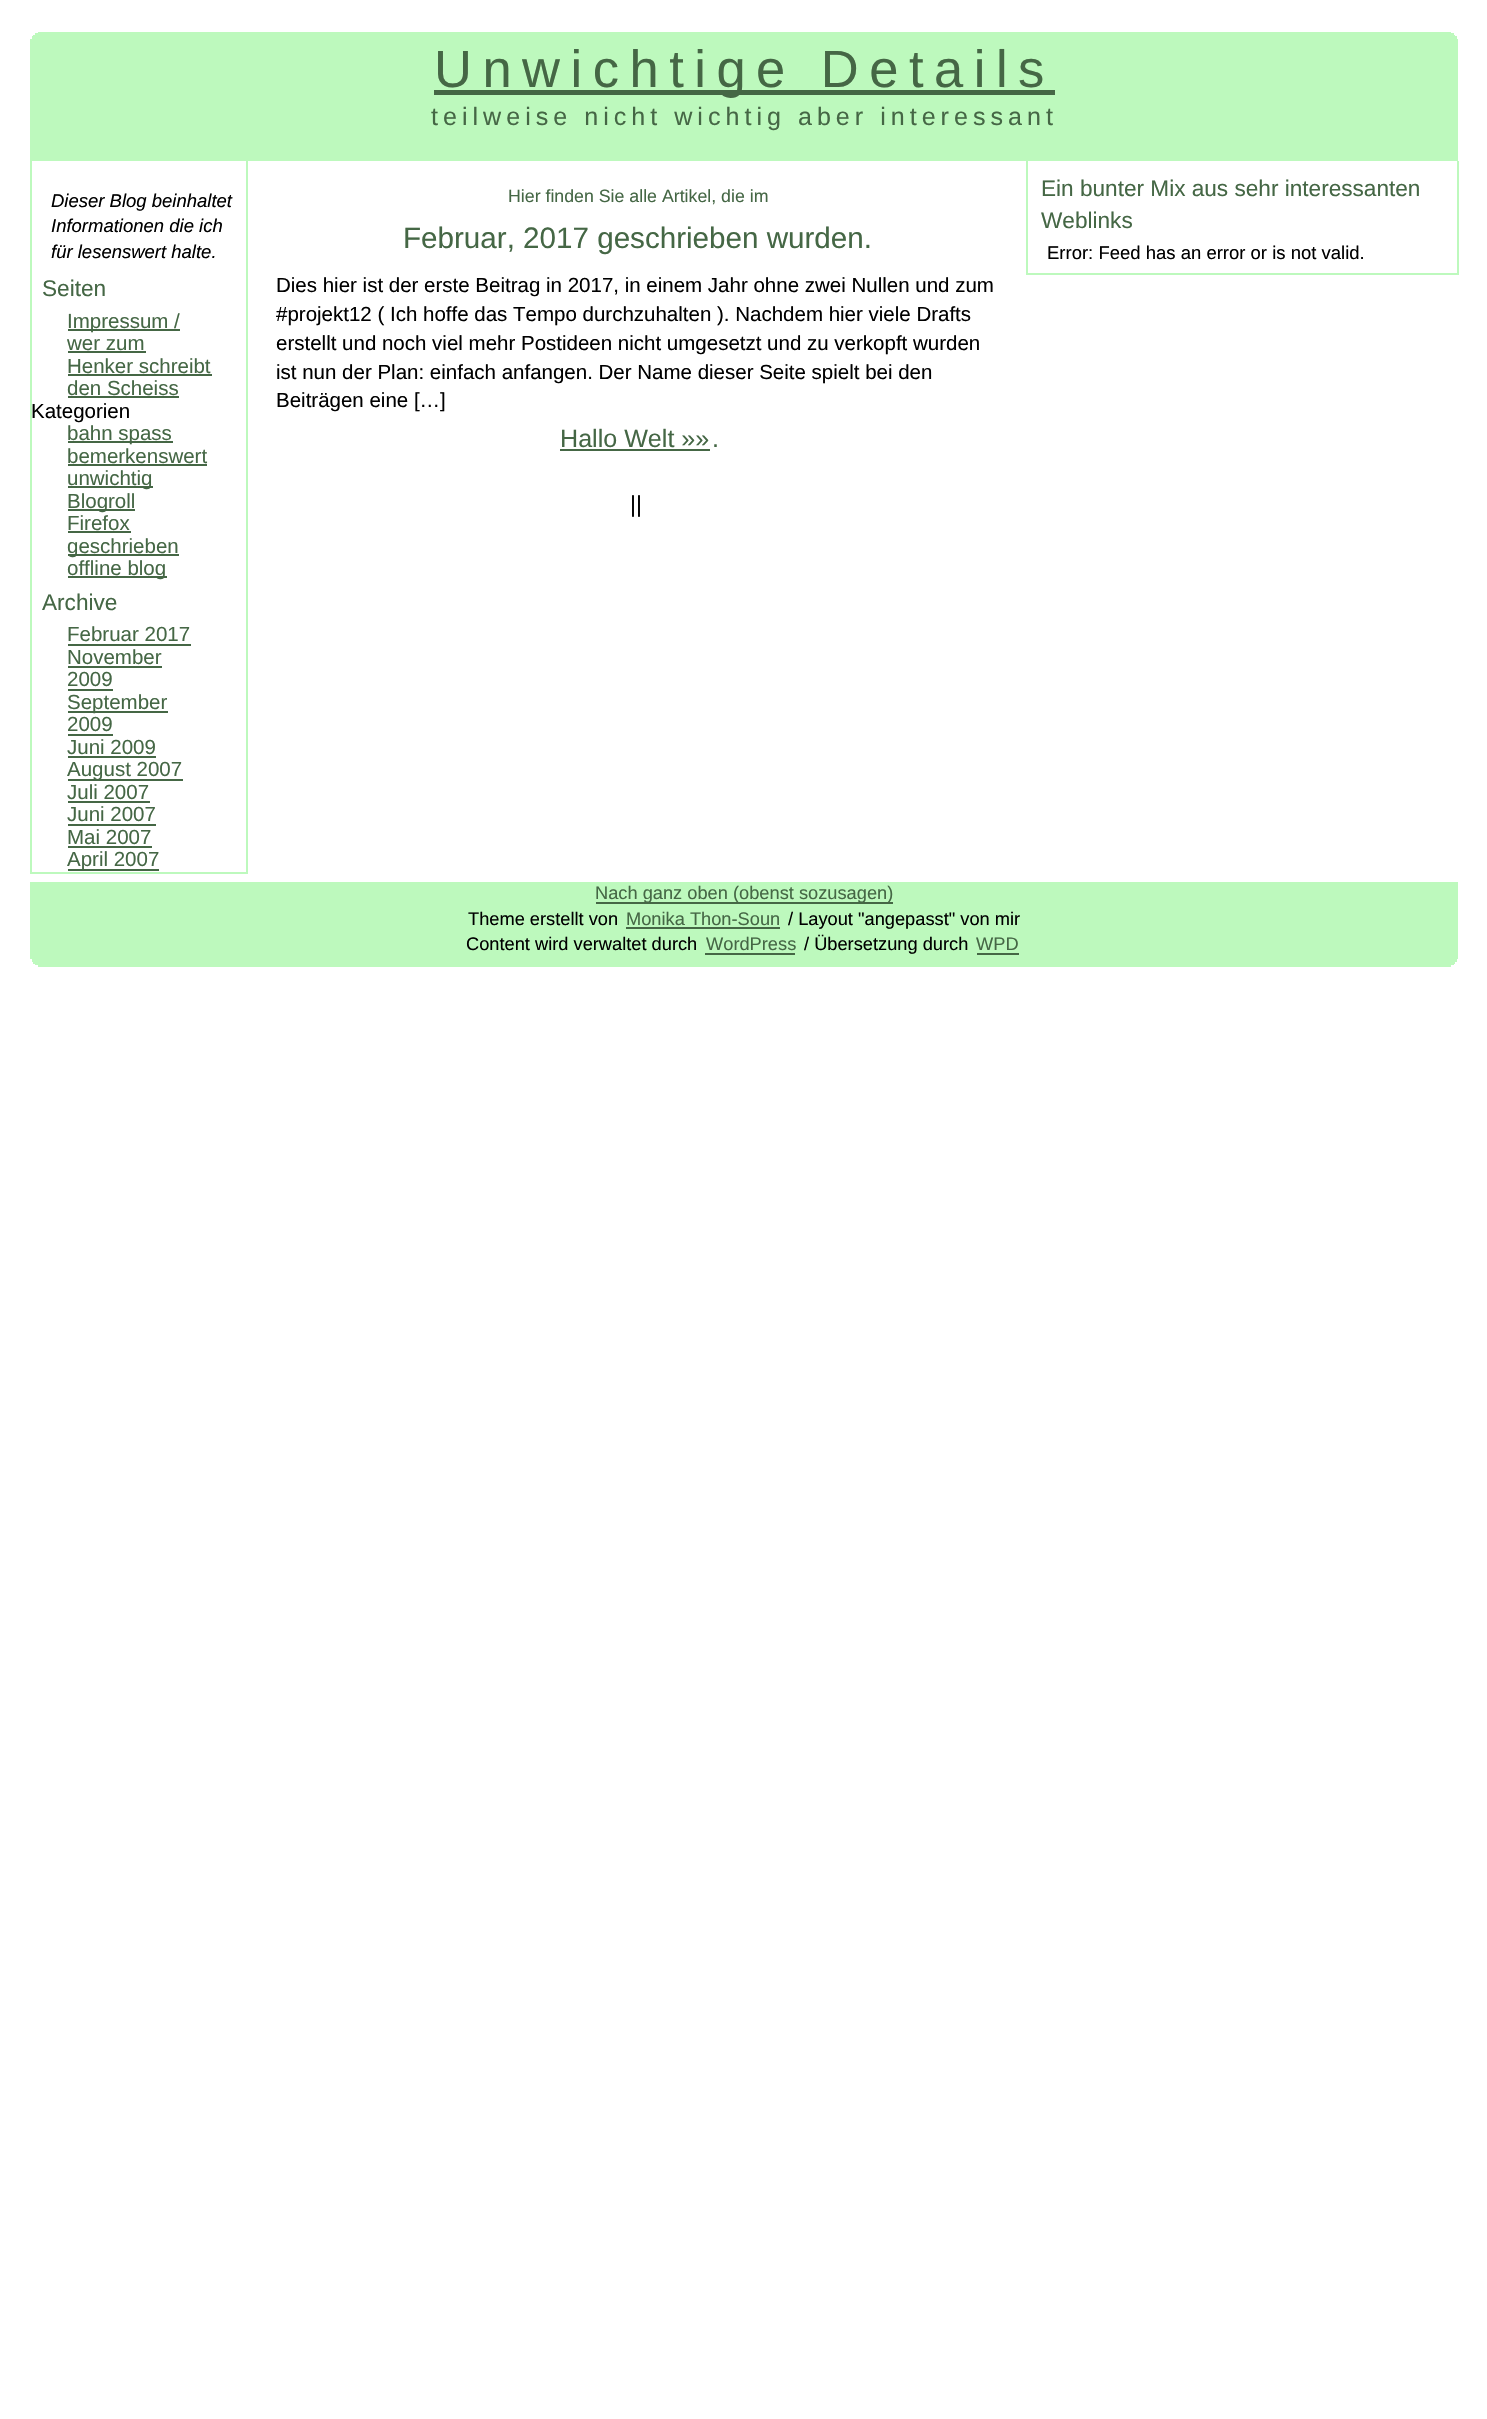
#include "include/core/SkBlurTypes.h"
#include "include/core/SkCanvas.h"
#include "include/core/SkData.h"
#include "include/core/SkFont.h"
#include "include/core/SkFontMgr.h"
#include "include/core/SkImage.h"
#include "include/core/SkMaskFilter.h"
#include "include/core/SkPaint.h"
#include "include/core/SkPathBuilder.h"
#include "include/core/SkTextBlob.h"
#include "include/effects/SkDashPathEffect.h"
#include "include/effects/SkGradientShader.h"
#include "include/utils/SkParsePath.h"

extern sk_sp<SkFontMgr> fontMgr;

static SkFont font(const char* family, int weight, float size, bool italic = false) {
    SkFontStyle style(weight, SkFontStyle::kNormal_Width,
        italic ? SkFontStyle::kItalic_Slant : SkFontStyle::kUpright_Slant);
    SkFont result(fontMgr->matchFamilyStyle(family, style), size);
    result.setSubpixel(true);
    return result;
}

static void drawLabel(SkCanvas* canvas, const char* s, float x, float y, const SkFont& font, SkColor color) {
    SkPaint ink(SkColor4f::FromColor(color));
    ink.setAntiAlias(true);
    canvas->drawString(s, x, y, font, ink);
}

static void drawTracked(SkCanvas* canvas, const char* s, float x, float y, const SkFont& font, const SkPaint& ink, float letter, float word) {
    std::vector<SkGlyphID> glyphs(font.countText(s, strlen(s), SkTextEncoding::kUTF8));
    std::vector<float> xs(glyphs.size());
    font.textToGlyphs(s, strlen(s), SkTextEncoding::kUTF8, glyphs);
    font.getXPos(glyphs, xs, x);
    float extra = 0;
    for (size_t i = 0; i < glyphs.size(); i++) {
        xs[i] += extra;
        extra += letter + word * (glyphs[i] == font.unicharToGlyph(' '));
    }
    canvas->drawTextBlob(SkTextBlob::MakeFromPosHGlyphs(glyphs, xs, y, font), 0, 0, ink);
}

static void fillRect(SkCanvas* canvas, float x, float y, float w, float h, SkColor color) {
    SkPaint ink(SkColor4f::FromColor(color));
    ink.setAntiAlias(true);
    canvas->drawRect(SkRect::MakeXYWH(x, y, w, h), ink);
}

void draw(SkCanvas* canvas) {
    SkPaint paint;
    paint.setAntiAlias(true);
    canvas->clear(0xFFFFFFFF);
    fillRect(canvas, 30, 39, 1428, 122, 0xFFBDF9BD);
    fillRect(canvas, 38, 32, 1413, 1, 0xFFBDF9BD);
    fillRect(canvas, 35, 33, 1419, 2, 0xFFBDF9BD);
    fillRect(canvas, 33, 35, 1422, 1, 0xFFBDF9BD);
    fillRect(canvas, 32, 36, 1425, 3, 0xFFBDF9BD);
    fillRect(canvas, 434, 90, 621, 5, 0xFF456745);
    SkFont font1 = font("Liberation Sans", 400, 52.5f);
    paint.setColor(0xFF456745);
    drawTracked(canvas, "Unwichtige Details", 434, 87, font1, paint, 10.5f, 0);
    SkFont font2 = font("Liberation Sans", 400, 25.1f);
    drawTracked(canvas, "teilweise nicht wichtig aber interessant", 431, 125, font2, paint, 5, 0);
    fillRect(canvas, 246, 161, 2, 712, 0xFFBDF9BD);
    fillRect(canvas, 30, 872, 218, 2, 0xFFBDF9BD);
    fillRect(canvas, 30, 161, 2, 712, 0xFFBDF9BD);
    SkFont font3 = font("Liberation Sans", 400, 18.5f, true);
    drawLabel(canvas, "Dieser Blog beinhaltet", 51, 207, font3, 0xFF000000);
    drawLabel(canvas, "Informationen die ich", 51, 232, font3, 0xFF000000);
    drawLabel(canvas, "für lesenswert halte.", 51, 258, font3, 0xFF000000);
    SkFont font4 = font("Liberation Sans", 400, 22.6f);
    drawLabel(canvas, "Seiten", 42, 296, font4, 0xFF456745);
    fillRect(canvas, 68, 329, 112, 2, 0xFF456745);
    SkFont font5 = font("Liberation Sans", 400, 20.5f);
    drawLabel(canvas, "Impressum /", 67, 328, font5, 0xFF456745);
    drawLabel(canvas, "wer zum", 67, 350, font5, 0xFF456745);
    fillRect(canvas, 68, 351, 78, 2, 0xFF456745);
    drawLabel(canvas, "Henker schreibt", 67, 373, font5, 0xFF456745);
    fillRect(canvas, 68, 374, 144, 2, 0xFF456745);
    drawLabel(canvas, "den Scheiss", 67, 395, font5, 0xFF456745);
    fillRect(canvas, 68, 396, 111, 2, 0xFF456745);
    drawLabel(canvas, "Kategorien", 31, 418, font5, 0xFF000000);
    fillRect(canvas, 68, 441, 105, 2, 0xFF456745);
    drawLabel(canvas, "bahn spass", 67, 440, font5, 0xFF456745);
    drawLabel(canvas, "bemerkenswert", 67, 463, font5, 0xFF456745);
    fillRect(canvas, 68, 464, 139, 2, 0xFF456745);
    fillRect(canvas, 68, 486, 85, 2, 0xFF456745);
    drawLabel(canvas, "unwichtig", 67, 485, font5, 0xFF456745);
    fillRect(canvas, 68, 509, 67, 2, 0xFF456745);
    drawLabel(canvas, "Blogroll", 67, 508, font5, 0xFF456745);
    drawLabel(canvas, "Firefox", 67, 530, font5, 0xFF456745);
    fillRect(canvas, 68, 531, 63, 2, 0xFF456745);
    fillRect(canvas, 68, 554, 111, 2, 0xFF456745);
    drawLabel(canvas, "geschrieben", 67, 553, font5, 0xFF456745);
    fillRect(canvas, 68, 576, 99, 2, 0xFF456745);
    drawLabel(canvas, "offline blog", 67, 575, font5, 0xFF456745);
    drawLabel(canvas, "Archive", 42, 610, font4, 0xFF456745);
    drawLabel(canvas, "Februar 2017", 67, 641, font5, 0xFF456745);
    fillRect(canvas, 68, 644, 123, 2, 0xFF456745);
    drawLabel(canvas, "November", 67, 664, font5, 0xFF456745);
    fillRect(canvas, 68, 666, 94, 2, 0xFF456745);
    drawLabel(canvas, "2009", 67, 686, font5, 0xFF456745);
    fillRect(canvas, 68, 689, 45, 2, 0xFF456745);
    fillRect(canvas, 68, 711, 100, 2, 0xFF456745);
    drawLabel(canvas, "September", 67, 709, font5, 0xFF456745);
    drawLabel(canvas, "2009", 67, 731, font5, 0xFF456745);
    fillRect(canvas, 68, 734, 45, 2, 0xFF456745);
    drawLabel(canvas, "Juni 2009", 67, 754, font5, 0xFF456745);
    fillRect(canvas, 68, 756, 88, 2, 0xFF456745);
    fillRect(canvas, 68, 779, 115, 2, 0xFF456745);
    drawLabel(canvas, "August 2007", 67, 776, font5, 0xFF456745);
    drawLabel(canvas, "Juli 2007", 67, 799, font5, 0xFF456745);
    fillRect(canvas, 68, 801, 82, 2, 0xFF456745);
    drawLabel(canvas, "Juni 2007", 67, 821, font5, 0xFF456745);
    fillRect(canvas, 68, 824, 88, 2, 0xFF456745);
    drawLabel(canvas, "Mai 2007", 67, 844, font5, 0xFF456745);
    fillRect(canvas, 68, 846, 84, 2, 0xFF456745);
    fillRect(canvas, 68, 869, 91, 2, 0xFF456745);
    drawLabel(canvas, "April 2007", 67, 866, font5, 0xFF456745);
    SkFont font6 = font("Liberation Sans", 400, 17.75f);
    drawLabel(canvas, "Hier finden Sie alle Artikel, die im", 508, 202, font6, 0xFF456745);
    SkFont font7 = font("Liberation Sans", 400, 29.6f);
    drawLabel(canvas, "Februar, 2017 geschrieben wurden.", 403, 248, font7, 0xFF456745);
    drawLabel(canvas, "Dies hier ist der erste Beitrag in 2017, in einem Jahr ohne zwei Nullen und zum", 276, 292, font5, 0xFF000000);
    drawLabel(canvas, "#projekt12 ( Ich hoffe das Tempo durchzuhalten ). Nachdem hier viele Drafts", 276, 321, font5, 0xFF000000);
    drawLabel(canvas, "erstellt und noch viel mehr Postideen nicht umgesetzt und zu verkopft wurden", 276, 350, font5, 0xFF000000);
    drawLabel(canvas, "ist nun der Plan: einfach anfangen. Der Name dieser Seite spielt bei den", 276, 379, font5, 0xFF000000);
    drawLabel(canvas, "Beiträgen eine […]", 276, 407, font5, 0xFF000000);
    drawLabel(canvas, "Hallo Welt »»", 560, 447, font2, 0xFF456745);
    fillRect(canvas, 560, 449, 150, 2, 0xFF456745);
    drawLabel(canvas, ".", 712, 447, font2, 0xFF456745);
    SkFont font8 = font("Liberation Sans", 400, 23);
    drawLabel(canvas, "||", 630, 512, font8, 0xFF000000);
    fillRect(canvas, 1457, 161, 2, 114, 0xFFBDF9BD);
    fillRect(canvas, 1026, 273, 432, 2, 0xFFBDF9BD);
    fillRect(canvas, 1026, 161, 2, 114, 0xFFBDF9BD);
    drawLabel(canvas, "Ein bunter Mix aus sehr interessanten", 1041, 196, font4, 0xFF456745);
    drawLabel(canvas, "Weblinks", 1041, 228, font4, 0xFF456745);
    SkFont font9 = font("Liberation Sans", 400, 18.5f);
    drawLabel(canvas, "Error: Feed has an error or is not valid.", 1047, 259, font9, 0xFF000000);
    fillRect(canvas, 30, 882, 1428, 77, 0xFFBDF9BD);
    fillRect(canvas, 596, 902, 297, 2, 0xFF456745);
    SkFont font10 = font("Liberation Sans", 400, 18.25f);
    drawLabel(canvas, "Nach ganz oben (obenst sozusagen)", 595, 899, font10, 0xFF456745);
    drawLabel(canvas, "Theme erstellt von", 468, 925, font10, 0xFF000000);
    drawLabel(canvas, "Monika Thon-Soun", 626, 925, font10, 0xFF456745);
    fillRect(canvas, 626, 927, 154, 2, 0xFF456745);
    drawLabel(canvas, "/ Layout \"angepasst\" von mir", 788, 925, font10, 0xFF000000);
    drawLabel(canvas, "Content wird verwaltet durch", 466, 950, font10, 0xFF000000);
    drawLabel(canvas, "WordPress", 706, 950, font10, 0xFF456745);
    fillRect(canvas, 705, 953, 90, 2, 0xFF456745);
    drawLabel(canvas, "/ Übersetzung durch", 804, 950, font10, 0xFF000000);
    drawLabel(canvas, "WPD", 976, 950, font10, 0xFF456745);
    fillRect(canvas, 977, 953, 42, 2, 0xFF456745);
    fillRect(canvas, 32, 959, 1425, 3, 0xFFBDF9BD);
    fillRect(canvas, 33, 962, 1422, 2, 0xFFBDF9BD);
    fillRect(canvas, 35, 964, 1419, 1, 0xFFBDF9BD);
    fillRect(canvas, 38, 965, 1413, 2, 0xFFBDF9BD);
}
